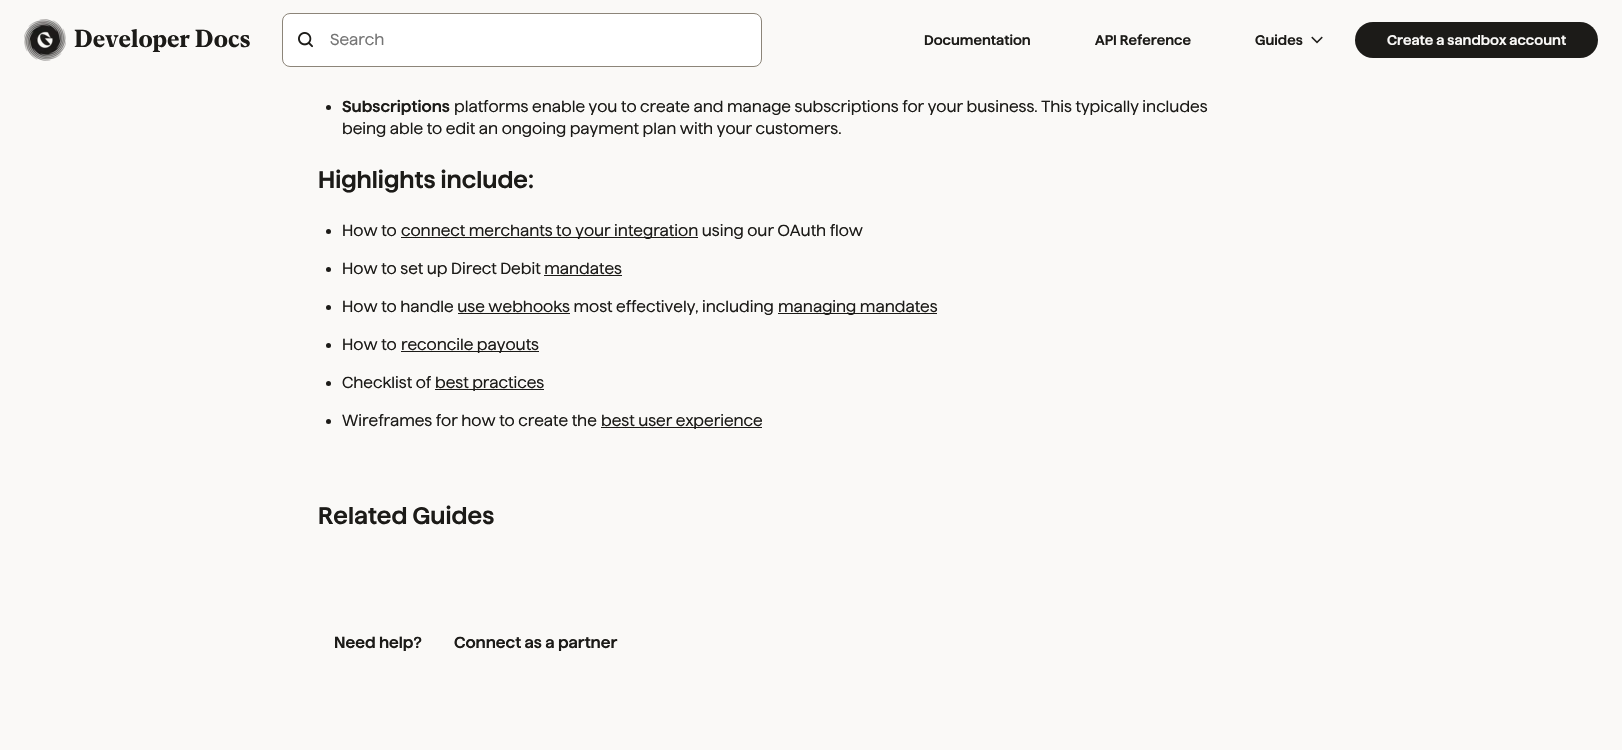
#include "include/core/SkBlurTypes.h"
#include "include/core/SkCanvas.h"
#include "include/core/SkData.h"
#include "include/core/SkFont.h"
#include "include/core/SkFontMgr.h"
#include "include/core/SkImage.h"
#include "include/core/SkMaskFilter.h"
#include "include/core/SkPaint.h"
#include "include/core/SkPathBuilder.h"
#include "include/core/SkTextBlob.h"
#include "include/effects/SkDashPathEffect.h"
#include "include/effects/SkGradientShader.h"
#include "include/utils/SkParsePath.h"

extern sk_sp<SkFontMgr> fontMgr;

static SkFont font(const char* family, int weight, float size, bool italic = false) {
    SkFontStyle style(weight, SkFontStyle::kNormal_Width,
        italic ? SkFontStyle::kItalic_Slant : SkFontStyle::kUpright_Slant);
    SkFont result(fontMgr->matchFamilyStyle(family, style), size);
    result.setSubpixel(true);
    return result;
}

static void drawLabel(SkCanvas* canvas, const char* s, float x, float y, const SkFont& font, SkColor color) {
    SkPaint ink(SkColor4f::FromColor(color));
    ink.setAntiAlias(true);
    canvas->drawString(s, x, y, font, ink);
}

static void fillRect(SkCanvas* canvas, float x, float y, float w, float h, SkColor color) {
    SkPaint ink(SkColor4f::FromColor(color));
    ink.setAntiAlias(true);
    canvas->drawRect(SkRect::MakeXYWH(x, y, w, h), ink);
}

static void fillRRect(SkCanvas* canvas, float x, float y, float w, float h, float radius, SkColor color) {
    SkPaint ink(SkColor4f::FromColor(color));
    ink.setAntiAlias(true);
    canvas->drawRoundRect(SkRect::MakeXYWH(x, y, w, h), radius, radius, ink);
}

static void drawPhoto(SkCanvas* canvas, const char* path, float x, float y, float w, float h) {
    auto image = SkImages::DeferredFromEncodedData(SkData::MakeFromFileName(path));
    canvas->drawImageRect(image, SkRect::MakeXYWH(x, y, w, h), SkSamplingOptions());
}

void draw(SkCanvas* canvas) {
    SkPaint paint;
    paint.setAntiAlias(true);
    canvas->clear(0xFFFAF9F7);
    drawPhoto(canvas, "assets/img1.png", 24, 19, 42, 42);
    SkFont font1 = font("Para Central", 700, 24);
    drawLabel(canvas, "Developer Docs", 74, 47, font1, 0xFF1C1B18);
    paint.setColor(0xFFFFFFFF);
    canvas->drawRoundRect(SkRect::MakeXYWH(282.5f, 13.5f, 479, 53), 7.5f, 7.5f, paint);
    paint.setStroke(true);
    paint.setStrokeWidth(1);
    paint.setColor(0xFF8C8579);
    canvas->drawRoundRect(SkRect::MakeXYWH(282.5f, 13.5f, 479, 53), 7.5f, 7.5f, paint);
    drawPhoto(canvas, "assets/img2.png", 298, 32, 15, 16);
    SkFont font2 = font("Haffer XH", 400, 16);
    drawLabel(canvas, "Search", 330, 45, font2, 0xFF757575);
    SkFont font3 = font("Haffer XH", 600, 14);
    drawLabel(canvas, "Documentation", 924, 45, font3, 0xFF1C1B18);
    drawLabel(canvas, "API Reference", 1095, 45, font3, 0xFF1C1B18);
    drawLabel(canvas, "Guides", 1255, 45, font3, 0xFF1C1B18);
    drawPhoto(canvas, "assets/img3.png", 1311, 36, 12, 8);
    fillRRect(canvas, 1355, 22, 243, 36, 18, 0xFF1C1B18);
    drawLabel(canvas, "Create a sandbox account", 1387, 45, font3, 0xFFFAF9F7);
    paint.setStroke(false);
    paint.setColor(0xFF1C1B18);
    canvas->drawCircle(328.5f, 107.5f, 2.5f, paint);
    SkFont font4 = font("Haffer XH", 600, 16);
    drawLabel(canvas, "Subscriptions", 342, 112, font4, 0xFF1C1B18);
    drawLabel(canvas, "platforms enable you to create and manage subscriptions for your business. This typically includes", 454, 112, font2, 0xFF1C1B18);
    drawLabel(canvas, "being able to edit an ongoing payment plan with your customers.", 342, 134, font2, 0xFF1C1B18);
    SkFont font5 = font("Haffer XH", 600, 24);
    drawLabel(canvas, "Highlights include:", 318, 188, font5, 0xFF1C1B18);
    canvas->drawCircle(328.5f, 231.5f, 2.5f, paint);
    drawLabel(canvas, "How to", 342, 236, font2, 0xFF1C1B18);
    fillRect(canvas, 401, 237, 297, 1, 0xFF1C1B18);
    drawLabel(canvas, "connect merchants to your integration using our OAuth flow", 401, 236, font2, 0xFF1C1B18);
    canvas->drawCircle(328.5f, 269.5f, 2.5f, paint);
    drawLabel(canvas, "How to set up Direct Debit mandates", 342, 274, font2, 0xFF1C1B18);
    fillRect(canvas, 544, 275, 78, 1, 0xFF1C1B18);
    canvas->drawCircle(328.5f, 307.5f, 2.5f, paint);
    drawLabel(canvas, "How to handle use webhooks most effectively, including", 342, 312, font2, 0xFF1C1B18);
    fillRect(canvas, 778, 313, 159, 1, 0xFF1C1B18);
    drawLabel(canvas, "managing mandates", 778, 312, font2, 0xFF1C1B18);
    fillRect(canvas, 458, 313, 112, 1, 0xFF1C1B18);
    canvas->drawCircle(328.5f, 345.5f, 2.5f, paint);
    drawLabel(canvas, "How to", 342, 350, font2, 0xFF1C1B18);
    fillRect(canvas, 401, 351, 138, 1, 0xFF1C1B18);
    drawLabel(canvas, "reconcile payouts", 401, 350, font2, 0xFF1C1B18);
    canvas->drawCircle(328.5f, 383.5f, 2.5f, paint);
    drawLabel(canvas, "Checklist of", 342, 388, font2, 0xFF1C1B18);
    fillRect(canvas, 435, 389, 109, 1, 0xFF1C1B18);
    drawLabel(canvas, "best practices", 435, 388, font2, 0xFF1C1B18);
    canvas->drawCircle(328.5f, 421.5f, 2.5f, paint);
    drawLabel(canvas, "Wireframes for how to create the", 342, 426, font2, 0xFF1C1B18);
    fillRect(canvas, 601, 427, 161, 1, 0xFF1C1B18);
    drawLabel(canvas, "best user experience", 601, 426, font2, 0xFF1C1B18);
    drawLabel(canvas, "Related Guides", 318, 524, font5, 0xFF1C1B18);
    drawLabel(canvas, "Need help?", 334, 648, font4, 0xFF1C1B18);
    drawLabel(canvas, "Connect as a partner", 454, 648, font4, 0xFF1C1B18);
}
